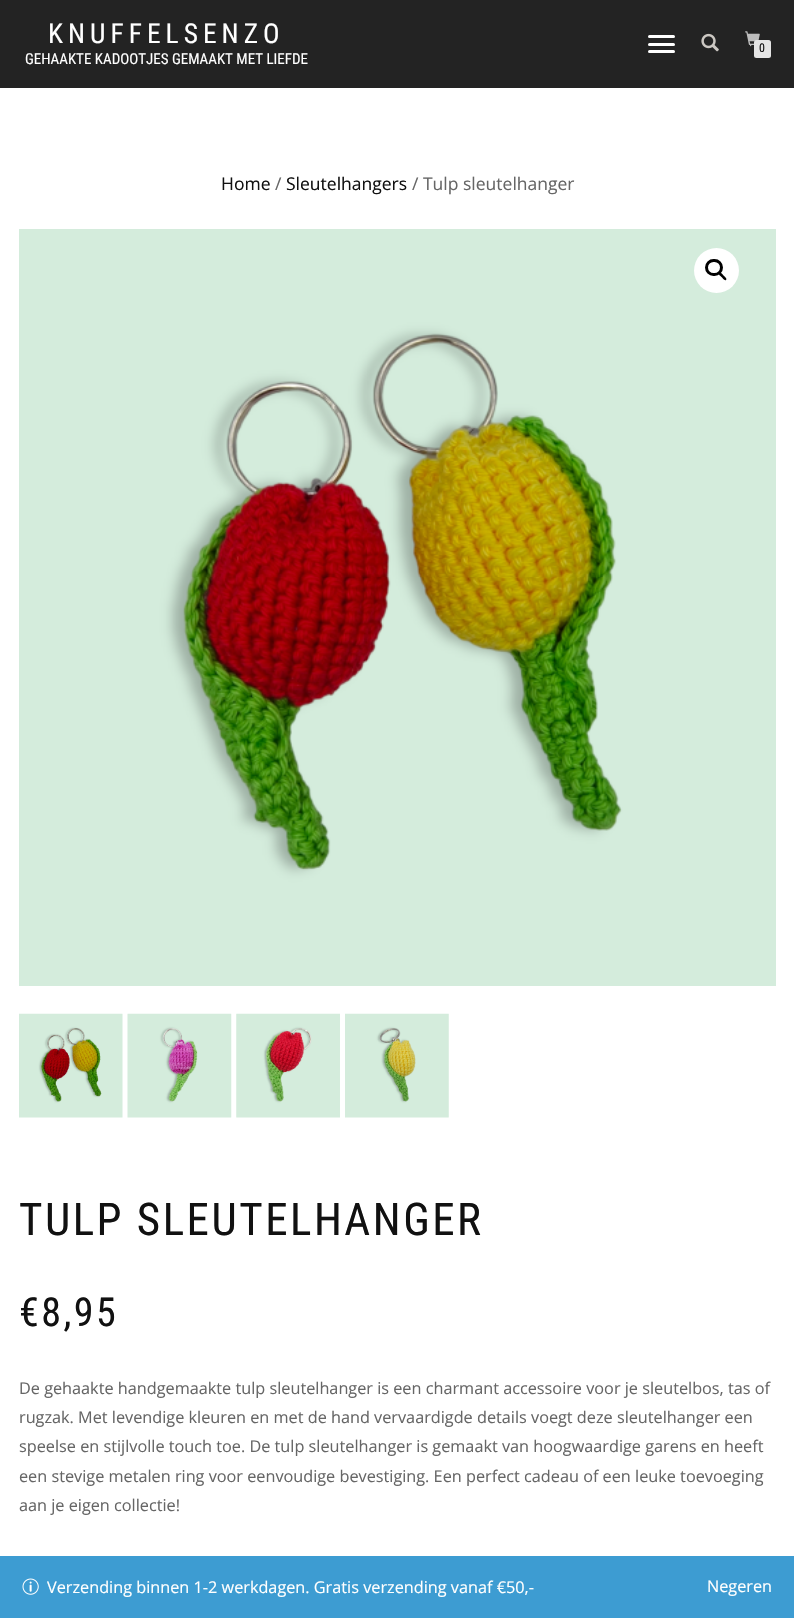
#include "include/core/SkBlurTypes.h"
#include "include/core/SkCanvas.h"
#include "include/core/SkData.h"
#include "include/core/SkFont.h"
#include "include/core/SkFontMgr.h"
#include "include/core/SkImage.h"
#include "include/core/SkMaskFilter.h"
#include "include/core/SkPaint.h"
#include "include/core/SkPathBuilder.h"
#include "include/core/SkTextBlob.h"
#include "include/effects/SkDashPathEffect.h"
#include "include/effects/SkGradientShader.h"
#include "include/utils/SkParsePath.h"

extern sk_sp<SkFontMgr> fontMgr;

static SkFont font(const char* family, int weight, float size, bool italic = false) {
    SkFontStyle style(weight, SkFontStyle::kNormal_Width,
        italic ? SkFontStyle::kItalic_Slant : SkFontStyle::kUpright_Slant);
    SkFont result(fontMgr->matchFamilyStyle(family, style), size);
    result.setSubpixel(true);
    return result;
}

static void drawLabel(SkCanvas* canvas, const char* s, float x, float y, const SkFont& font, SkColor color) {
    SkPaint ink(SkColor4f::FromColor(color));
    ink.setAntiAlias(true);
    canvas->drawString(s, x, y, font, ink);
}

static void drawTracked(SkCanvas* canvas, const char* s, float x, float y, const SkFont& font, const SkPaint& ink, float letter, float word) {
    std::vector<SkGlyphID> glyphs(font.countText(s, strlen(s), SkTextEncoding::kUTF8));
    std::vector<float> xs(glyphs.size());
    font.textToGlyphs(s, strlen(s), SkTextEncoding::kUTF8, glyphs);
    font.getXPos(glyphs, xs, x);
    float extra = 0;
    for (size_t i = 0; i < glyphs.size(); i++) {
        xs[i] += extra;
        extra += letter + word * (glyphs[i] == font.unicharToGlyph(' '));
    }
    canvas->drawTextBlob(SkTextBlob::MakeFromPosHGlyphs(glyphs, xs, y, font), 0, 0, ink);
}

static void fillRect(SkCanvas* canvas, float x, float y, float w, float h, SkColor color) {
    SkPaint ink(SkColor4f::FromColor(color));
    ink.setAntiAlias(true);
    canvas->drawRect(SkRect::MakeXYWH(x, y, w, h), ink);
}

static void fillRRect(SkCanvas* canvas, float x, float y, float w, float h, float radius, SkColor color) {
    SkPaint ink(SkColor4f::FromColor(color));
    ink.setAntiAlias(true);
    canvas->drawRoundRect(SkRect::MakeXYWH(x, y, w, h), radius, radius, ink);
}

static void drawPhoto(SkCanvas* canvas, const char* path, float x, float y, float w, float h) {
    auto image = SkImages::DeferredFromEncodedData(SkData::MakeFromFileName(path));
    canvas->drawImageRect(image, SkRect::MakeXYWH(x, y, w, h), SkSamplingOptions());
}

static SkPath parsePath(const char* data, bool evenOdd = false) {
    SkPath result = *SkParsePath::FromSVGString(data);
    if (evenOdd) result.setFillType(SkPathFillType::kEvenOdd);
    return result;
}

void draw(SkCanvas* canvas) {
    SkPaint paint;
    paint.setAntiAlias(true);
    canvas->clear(0xFFFFFFFF);
    fillRect(canvas, 0, 0, 794, 88, 0xFF232323);
    SkFont font1 = font("Roboto Condensed", 400, 27.5f);
    paint.setColor(0xFFFFFFFF);
    drawTracked(canvas, "KNUFFELSENZO", 48, 43, font1, paint, 5, 0);
    SkFont font2 = font("Roboto Condensed", 400, 15);
    drawLabel(canvas, "GEHAAKTE KADOOTJES GEMAAKT MET LIEFDE", 25, 64, font2, 0xFFFFFFFF);
    fillRRect(canvas, 648, 35, 27, 3, 1.5f, 0xFFFFFFFF);
    fillRRect(canvas, 648, 43, 27, 3, 1.5f, 0xFFFFFFFF);
    fillRRect(canvas, 648, 50, 27, 3, 1.5f, 0xFFFFFFFF);
    drawPhoto(canvas, "assets/img1.png", 701, 33, 18, 19);
    drawPhoto(canvas, "assets/img2.png", 745, 31, 15, 16);
    fillRRect(canvas, 754, 40, 17, 18, 2.5f, 0xFFE5E5E5);
    SkFont font3 = font("Roboto Condensed", 400, 12);
    drawLabel(canvas, "0", 759, 52, font3, 0xFF111111);
    SkFont font4 = font("Open Sans", 400, 17.5f);
    drawLabel(canvas, "Home", 221, 190, font4, 0xFF111111);
    drawLabel(canvas, "/", 275, 190, font4, 0xFF666666);
    drawLabel(canvas, "Sleutelhangers", 286, 190, font4, 0xFF111111);
    drawLabel(canvas, "/ Tulp sleutelhanger", 412, 190, font4, 0xFF666666);
    drawPhoto(canvas, "assets/img3.png", 19, 229, 757, 757);
    canvas->drawCircle(716.5f, 270.5f, 22.5f, paint);
    paint.setStroke(true);
    paint.setStrokeWidth(3);
    paint.setColor(0xFF000000);
    canvas->drawRoundRect(SkRect::MakeXYWH(706.5f, 260.5f, 15, 14), 7, 7, paint);
    paint.setStroke(false);
    canvas->drawPath(parsePath("M719 272.5C720.5 271.5 722.5 274.5 723.5 275.5C724 276 727.5 278.5 726 280C724.5 281 722.5 278 721.5 277C721 276.5 717.5 274 719 272.5Z"), paint);
    drawPhoto(canvas, "assets/img4.png", 19, 1013, 104, 105);
    drawPhoto(canvas, "assets/img5.png", 127, 1013, 105, 105);
    drawPhoto(canvas, "assets/img6.png", 236, 1013, 104, 105);
    drawPhoto(canvas, "assets/img7.png", 345, 1013, 104, 105);
    SkFont font5 = font("Roboto Condensed", 400, 45);
    paint.setColor(0xFF111111);
    drawTracked(canvas, "TULP SLEUTELHANGER", 19, 1235, font5, paint, 2.5f, 0);
    SkFont font6 = font("Roboto Condensed", 400, 40);
    drawTracked(canvas, "€8,95", 19, 1326, font6, paint, 2.5f, 0);
    SkFont font7 = font("Open Sans", 400, 16.25f);
    drawLabel(canvas, "De gehaakte handgemaakte tulp sleutelhanger is een charmant accessoire voor je sleutelbos, tas of", 19, 1394, font7, 0xFF666666);
    drawLabel(canvas, "rugzak. Met levendige kleuren en met de hand vervaardigde details voegt deze sleutelhanger een", 19, 1423, font7, 0xFF666666);
    drawLabel(canvas, "speelse en stijlvolle touch toe. De tulp sleutelhanger is gemaakt van hoogwaardige garens en heeft", 19, 1452, font7, 0xFF666666);
    drawLabel(canvas, "een stevige metalen ring voor eenvoudige bevestiging. Een perfect cadeau of een leuke toevoeging", 19, 1482, font7, 0xFF666666);
    drawLabel(canvas, "aan je eigen collectie!", 19, 1511, font7, 0xFF666666);
    fillRect(canvas, 0, 1556, 794, 62, 0xFF3D9CD2);
    drawPhoto(canvas, "assets/img8.png", 22, 1578, 17, 17);
    drawLabel(canvas, "Verzending binnen 1-2 werkdagen. Gratis verzending vanaf €50,-", 47, 1593, font7, 0xFFFFFFFF);
    drawLabel(canvas, "Negeren", 707, 1592, font7, 0xFFFFFFFF);
}
